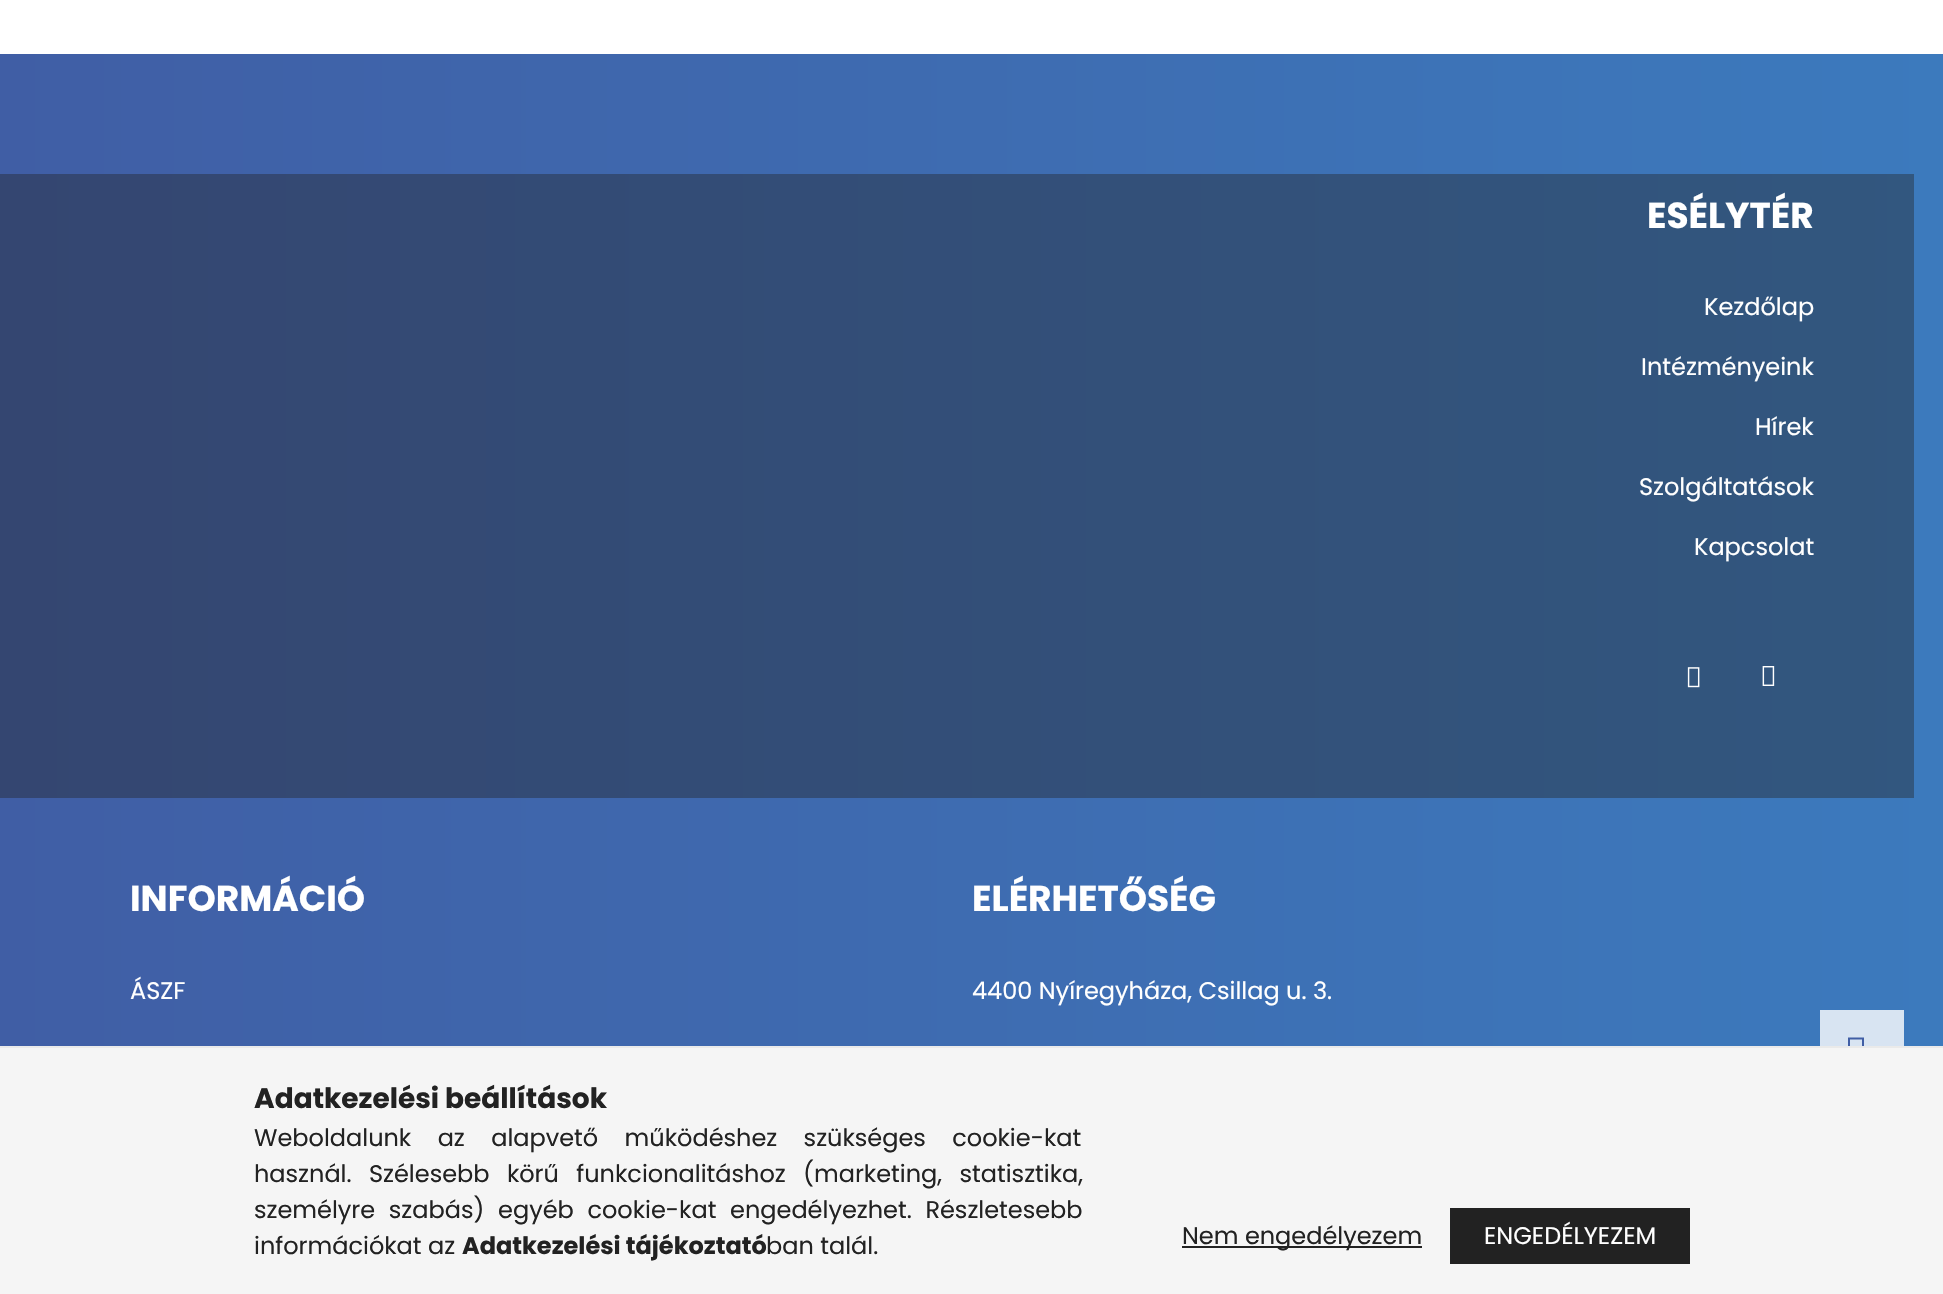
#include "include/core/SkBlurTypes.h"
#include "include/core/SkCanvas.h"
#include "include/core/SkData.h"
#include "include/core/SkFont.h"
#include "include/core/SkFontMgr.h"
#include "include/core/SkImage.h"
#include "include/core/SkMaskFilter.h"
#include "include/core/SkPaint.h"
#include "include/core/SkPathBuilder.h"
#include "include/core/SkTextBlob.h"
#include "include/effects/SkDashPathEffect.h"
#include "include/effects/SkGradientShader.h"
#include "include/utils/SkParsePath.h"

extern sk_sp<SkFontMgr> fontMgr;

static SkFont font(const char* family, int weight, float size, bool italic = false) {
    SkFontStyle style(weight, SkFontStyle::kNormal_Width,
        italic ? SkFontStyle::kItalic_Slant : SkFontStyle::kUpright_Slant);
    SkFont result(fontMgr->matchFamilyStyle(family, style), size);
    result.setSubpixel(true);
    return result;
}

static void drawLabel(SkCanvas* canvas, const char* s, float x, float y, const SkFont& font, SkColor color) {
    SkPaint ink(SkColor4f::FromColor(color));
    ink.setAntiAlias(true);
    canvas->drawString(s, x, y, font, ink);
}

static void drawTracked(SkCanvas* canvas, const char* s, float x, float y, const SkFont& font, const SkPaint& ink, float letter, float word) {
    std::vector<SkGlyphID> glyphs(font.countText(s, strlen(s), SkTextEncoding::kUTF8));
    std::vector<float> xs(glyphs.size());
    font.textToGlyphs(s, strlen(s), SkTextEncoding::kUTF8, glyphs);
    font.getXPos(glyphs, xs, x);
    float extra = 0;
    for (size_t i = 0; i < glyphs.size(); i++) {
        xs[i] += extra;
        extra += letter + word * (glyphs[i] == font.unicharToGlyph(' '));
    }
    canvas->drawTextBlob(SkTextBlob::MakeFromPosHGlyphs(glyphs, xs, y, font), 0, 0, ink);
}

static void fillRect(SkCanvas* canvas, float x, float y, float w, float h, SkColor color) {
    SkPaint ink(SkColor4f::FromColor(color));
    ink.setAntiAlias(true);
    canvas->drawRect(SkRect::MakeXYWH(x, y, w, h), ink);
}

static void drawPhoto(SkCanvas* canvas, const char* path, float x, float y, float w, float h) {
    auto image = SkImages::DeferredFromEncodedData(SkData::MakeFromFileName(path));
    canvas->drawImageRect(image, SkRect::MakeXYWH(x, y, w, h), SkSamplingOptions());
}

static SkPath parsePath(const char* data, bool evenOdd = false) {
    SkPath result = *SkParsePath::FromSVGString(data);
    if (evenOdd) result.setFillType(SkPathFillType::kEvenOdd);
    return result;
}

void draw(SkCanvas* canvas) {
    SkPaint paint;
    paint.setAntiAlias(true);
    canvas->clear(0xFFFFFFFF);
    {
        const SkColor colors[] = {0xFF405EA5, 0xFF3C7ABD};
        const float stops[] = {0, 1};
        const SkPoint ends[] = {{0, 707}, {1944, 707}};
        paint.setShader(SkGradientShader::MakeLinear(ends, colors, stops, 2, SkTileMode::kClamp));
        paint.setAlpha(255);
    }
    canvas->drawRect(SkRect::MakeXYWH(0, 54, 1943, 992), paint);
    {
        const SkColor colors[] = {0xFF344671, 0xFF32577F};
        const float stops[] = {0, 1};
        const SkPoint ends[] = {{0, 707}, {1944, 707}};
        paint.setShader(SkGradientShader::MakeLinear(ends, colors, stops, 2, SkTileMode::kClamp));
        paint.setAlpha(255);
    }
    canvas->drawRect(SkRect::MakeXYWH(30, 174, 1884, 624), paint);
    fillRect(canvas, 0, 174, 30, 624, 0xFF344671);
    SkFont font1 = font("Poppins", 700, 36);
    drawLabel(canvas, "ESÉLYTÉR", 1647, 228, font1, 0xFFFFFFFF);
    SkFont font2 = font("Poppins", 400, 24);
    drawLabel(canvas, "Kezdőlap", 1704, 315, font2, 0xFFFFFFFF);
    drawLabel(canvas, "Intézményeink", 1641, 375, font2, 0xFFFFFFFF);
    drawLabel(canvas, "Hírek", 1755, 435, font2, 0xFFFFFFFF);
    drawLabel(canvas, "Szolgáltatások", 1639, 495, font2, 0xFFFFFFFF);
    drawLabel(canvas, "Kapcsolat", 1694, 555, font2, 0xFFFFFFFF);
    drawPhoto(canvas, "assets/img1.png", 1687, 667, 13, 21);
    drawPhoto(canvas, "assets/img2.png", 1762, 666, 13, 20);
    drawLabel(canvas, "INFORMÁCIÓ", 130, 911, font1, 0xFFFFFFFF);
    drawLabel(canvas, "ÁSZF", 130, 999, font2, 0xFFFFFFFF);
    drawLabel(canvas, "ELÉRHETŐSÉG", 972, 911, font1, 0xFFFFFFFF);
    drawLabel(canvas, "4400 Nyíregyháza, Csillag u. 3.", 972, 999, font2, 0xFFFFFFFF);
    fillRect(canvas, 1820, 1010, 84, 36, 0xFFD8E4F2);
    paint.setShader(nullptr);
    paint.setColor(0xFF405EA5);
    canvas->drawPath(parsePath("M1848 1066V1037.5H1864V1066ZM1850 1064H1862V1039.5H1850Z"), paint);
    fillRect(canvas, 0, 1048, 1943, 246, 0xFFF5F5F5);
    fillRect(canvas, 0, 1046, 1943, 2, 0xFFEAEAEA);
    SkFont font3 = font("Poppins", 700, 28);
    drawLabel(canvas, "Adatkezelési beállítások", 254, 1108, font3, 0xFF222222);
    paint.setColor(0xFF222222);
    drawTracked(canvas, "Weboldalunk az alapvető működéshez szükséges cookie-kat", 254, 1146, font2, paint, 0, 20);
    drawTracked(canvas, "használ. Szélesebb körű funkcionalitáshoz (marketing, statisztika,", 254, 1182, font2, paint, 0, 11);
    drawTracked(canvas, "személyre szabás) egyéb cookie-kat engedélyezhet. Részletesebb", 254, 1218, font2, paint, 0, 7.25f);
    drawLabel(canvas, "információkat az", 254, 1254, font2, 0xFF222222);
    SkFont font4 = font("Poppins", 700, 24);
    drawLabel(canvas, "Adatkezelési tájékoztató", 462, 1254, font4, 0xFF222222);
    drawLabel(canvas, "ban talál.", 766, 1254, font2, 0xFF222222);
    fillRect(canvas, 1182, 1246, 240, 2, 0xFF222222);
    drawLabel(canvas, "Nem engedélyezem", 1182, 1244, font2, 0xFF222222);
    {
        const SkColor colors[] = {0xFF405EA5, 0xFF3C7ABD, 0xFF222222, 0xFF222222};
        const float stops[] = {0, 0.33f, 0.67f, 1};
        const SkPoint ends[] = {{970, 1236}, {1690, 1236}};
        paint.setShader(SkGradientShader::MakeLinear(ends, colors, stops, 4, SkTileMode::kClamp));
        paint.setAlpha(255);
    }
    canvas->drawRect(SkRect::MakeXYWH(1450, 1208, 240, 56), paint);
    drawLabel(canvas, "ENGEDÉLYEZEM", 1484, 1244, font2, 0xFFFFFFFF);
}
